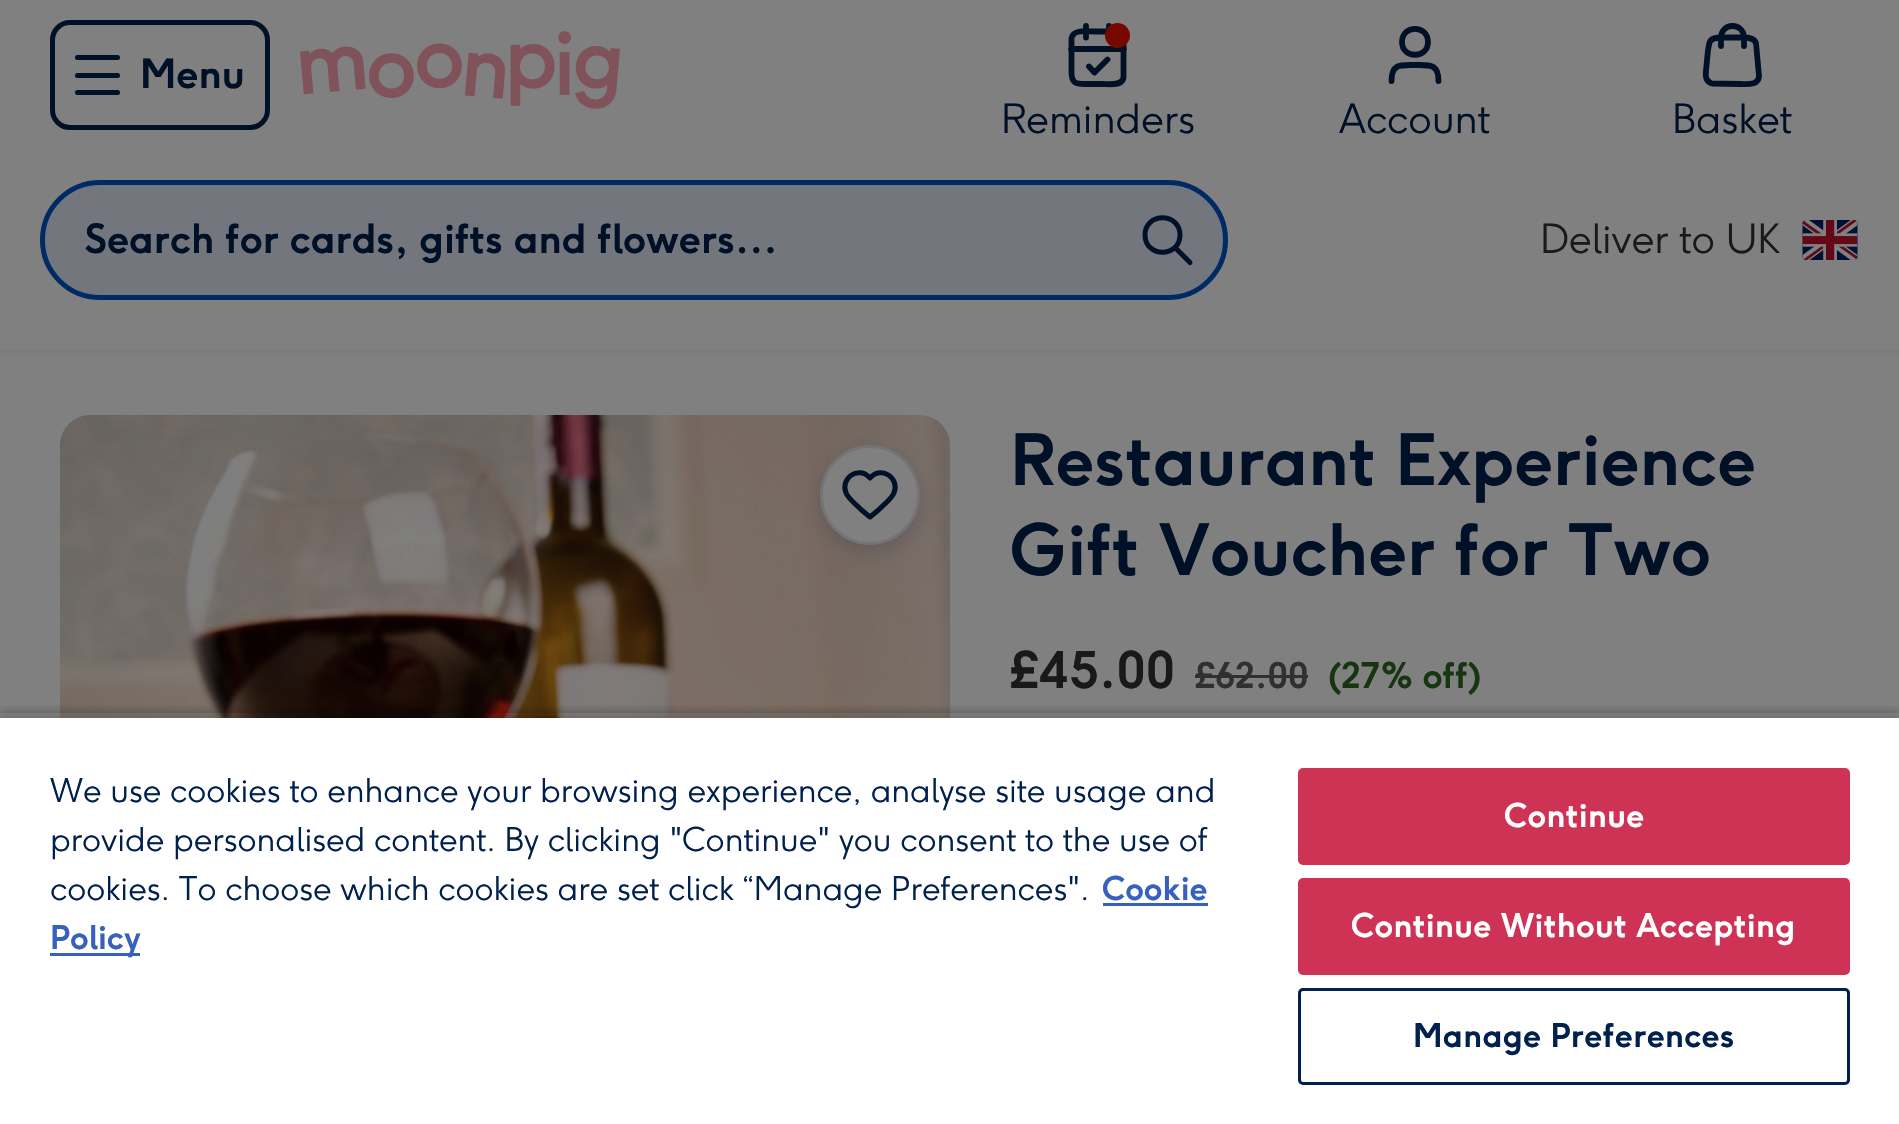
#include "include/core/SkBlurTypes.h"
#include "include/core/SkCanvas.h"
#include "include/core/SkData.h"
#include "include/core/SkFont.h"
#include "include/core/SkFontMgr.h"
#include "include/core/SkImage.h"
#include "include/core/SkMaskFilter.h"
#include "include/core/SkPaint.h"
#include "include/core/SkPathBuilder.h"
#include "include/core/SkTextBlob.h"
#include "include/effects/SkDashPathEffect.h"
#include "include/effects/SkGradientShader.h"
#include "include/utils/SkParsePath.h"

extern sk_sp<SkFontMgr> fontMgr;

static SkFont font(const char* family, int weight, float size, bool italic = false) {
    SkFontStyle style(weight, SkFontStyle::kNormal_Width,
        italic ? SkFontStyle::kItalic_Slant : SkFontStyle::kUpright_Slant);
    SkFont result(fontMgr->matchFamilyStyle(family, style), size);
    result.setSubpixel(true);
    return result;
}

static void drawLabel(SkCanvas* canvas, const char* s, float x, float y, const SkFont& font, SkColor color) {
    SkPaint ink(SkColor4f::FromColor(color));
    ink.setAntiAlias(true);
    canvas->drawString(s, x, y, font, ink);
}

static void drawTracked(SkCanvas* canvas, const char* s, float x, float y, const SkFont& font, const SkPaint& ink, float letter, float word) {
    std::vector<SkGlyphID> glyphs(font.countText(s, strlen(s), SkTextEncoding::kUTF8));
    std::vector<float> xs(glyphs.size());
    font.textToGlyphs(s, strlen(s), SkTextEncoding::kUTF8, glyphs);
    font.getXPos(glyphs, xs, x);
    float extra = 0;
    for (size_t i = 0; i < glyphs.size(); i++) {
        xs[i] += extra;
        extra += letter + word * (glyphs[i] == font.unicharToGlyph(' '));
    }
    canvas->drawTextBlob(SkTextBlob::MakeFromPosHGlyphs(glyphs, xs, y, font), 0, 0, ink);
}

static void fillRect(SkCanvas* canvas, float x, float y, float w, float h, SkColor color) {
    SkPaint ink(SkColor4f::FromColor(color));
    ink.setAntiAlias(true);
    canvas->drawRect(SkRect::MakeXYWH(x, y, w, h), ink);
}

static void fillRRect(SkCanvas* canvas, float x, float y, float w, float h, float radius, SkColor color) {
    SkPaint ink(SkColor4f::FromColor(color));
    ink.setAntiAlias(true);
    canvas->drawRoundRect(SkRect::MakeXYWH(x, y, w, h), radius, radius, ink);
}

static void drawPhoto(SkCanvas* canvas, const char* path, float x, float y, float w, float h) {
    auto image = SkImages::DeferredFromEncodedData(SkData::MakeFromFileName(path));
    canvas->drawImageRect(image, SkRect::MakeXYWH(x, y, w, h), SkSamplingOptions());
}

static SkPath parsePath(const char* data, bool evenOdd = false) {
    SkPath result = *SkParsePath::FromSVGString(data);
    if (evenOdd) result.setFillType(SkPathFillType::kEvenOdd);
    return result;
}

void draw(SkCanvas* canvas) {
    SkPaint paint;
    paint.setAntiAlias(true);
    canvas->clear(0xFF808080);
    fillRect(canvas, 0, 350, 1899, 5, 0xFF7C7C7D);
    paint.setStroke(true);
    paint.setStrokeWidth(5);
    paint.setColor(0xFF001027);
    canvas->drawRoundRect(SkRect::MakeXYWH(52.5f, 22.5f, 215, 105), 17.5f, 17.5f, paint);
    fillRRect(canvas, 75, 55, 45, 5, 2.5f, 0xFF001027);
    fillRRect(canvas, 75, 73, 45, 5, 2.5f, 0xFF001027);
    fillRRect(canvas, 75, 90, 45, 5, 2.5f, 0xFF001027);
    SkFont font1 = font("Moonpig", 700, 40);
    drawLabel(canvas, "Menu", 140, 88, font1, 0xFF001027);
    drawPhoto(canvas, "assets/img1.png", 300, 31, 320, 78);
    paint.setStrokeWidth(5.8f);
    paint.setStrokeCap(SkPaint::kRound_Cap);
    paint.setStrokeJoin(SkPaint::kRound_Join);
    canvas->drawPath(parsePath("M1124 49H1071M1109 26V37.5M1086 26V37.5M1089 66.5L1094.5 72.5L1107.5 59.5M1085 84H1101.5C1108 84 1121.5 86.5 1123.5 78V44C1123.5 33 1120 31.5 1110 31.5H1093.5C1087 31.5 1073.5 29 1071.5 38V72C1071.5 82.5 1075 84 1085 84"), paint);
    paint.setStroke(false);
    paint.setColor(0xFF760800);
    canvas->drawCircle(1117.5f, 35.5f, 12.5f, paint);
    SkFont font2 = font("Moonpig", 300, 40);
    drawLabel(canvas, "Reminders", 1001, 133, font2, 0xFF001027);
    paint.setStroke(true);
    paint.setColor(0xFF001027);
    canvas->drawPath(parsePath("M1438.5 81C1438.5 63.5 1429.5 65 1415 65C1400.5 65 1391.5 63.5 1391.5 81M1428 42C1428 59 1402 59 1402 42C1402 24.5 1428 24.5 1428 42"), paint);
    drawLabel(canvas, "Account", 1339, 133, font2, 0xFF001027);
    canvas->drawPath(parsePath("M1744 46V37.5C1744 31 1739 26 1732.5 26C1726 26 1721 31 1721 37.5V46M1708 50L1706.5 65.5C1706 71.5 1703.5 81.5 1712 83.5L1740.5 84C1747.5 84 1758.5 85.5 1759 76L1756 43C1754 37.5 1748 37.5 1743 37.5H1722C1717 37.5 1711.5 37.5 1709.5 42.5L1708 50"), paint);
    drawLabel(canvas, "Basket", 1672, 133, font2, 0xFF001027);
    paint.setStroke(false);
    paint.setColor(0xFF73777D);
    canvas->drawRoundRect(SkRect::MakeXYWH(42.5f, 182.5f, 1183, 115), 57.5f, 57.5f, paint);
    paint.setStroke(true);
    paint.setStrokeWidth(5);
    paint.setStrokeCap(SkPaint::kButt_Cap);
    paint.setStrokeJoin(SkPaint::kMiter_Join);
    paint.setColor(0xFF002A64);
    canvas->drawRoundRect(SkRect::MakeXYWH(42.5f, 182.5f, 1183, 115), 57.5f, 57.5f, paint);
    drawLabel(canvas, "Search for cards, gifts and flowers…", 85, 253, font1, 0xFF001027);
    paint.setStrokeCap(SkPaint::kRound_Cap);
    paint.setStrokeJoin(SkPaint::kRound_Join);
    paint.setColor(0xFF001027);
    canvas->drawPath(parsePath("M1190 262.5L1175 247.5M1180 235C1180 258 1145 258 1145 235C1145 212 1180 212 1180 235"), paint);
    drawLabel(canvas, "Deliver to UK", 1540, 253, font2, 0xFF191919);
    drawPhoto(canvas, "assets/img2.png", 1802, 220, 56, 40);
    drawPhoto(canvas, "assets/img3.png", 60, 415, 890, 303);
    paint.setStroke(false);
    paint.setColor(0x26000227);
    paint.setMaskFilter(SkMaskFilter::MakeBlur(kNormal_SkBlurStyle, 10));
    canvas->drawRoundRect(SkRect::MakeXYWH(820, 453, 100, 100), 50, 50, paint);
    paint.setMaskFilter(nullptr);
    paint.setColor(0xFF808080);
    canvas->drawCircle(870, 495, 48.5f, paint);
    paint.setStroke(true);
    paint.setStrokeWidth(3);
    paint.setStrokeCap(SkPaint::kButt_Cap);
    paint.setStrokeJoin(SkPaint::kMiter_Join);
    paint.setColor(0xFF747474);
    canvas->drawCircle(870, 495, 48.5f, paint);
    paint.setStrokeWidth(5);
    paint.setStrokeCap(SkPaint::kRound_Cap);
    paint.setStrokeJoin(SkPaint::kRound_Join);
    paint.setColor(0xFF001027);
    canvas->drawPath(parsePath("M870 478C858.5 464.5 839 479 846.5 494C850 500 856.5 505 861.5 510L870 517L878.5 510C883.5 505 890 500 893.5 494C901 479 881.5 464.5 870 478"), paint);
    SkFont font3 = font("Moonpig", 700, 70);
    drawLabel(canvas, "Restaurant Experience", 1010, 485, font3, 0xFF001027);
    drawLabel(canvas, "Gift Voucher for Two", 1010, 575, font3, 0xFF001027);
    SkFont font4 = font("Moonpig", 700, 50);
    drawLabel(canvas, "£45.00", 1010, 688, font4, 0xFF191919);
    SkFont font5 = font("Moonpig", 700, 35);
    drawLabel(canvas, "£62.00", 1195, 688, font5, 0xFF303030);
    fillRect(canvas, 1195, 675, 113, 3, 0xFF303030);
    drawLabel(canvas, "(27% off)", 1328, 688, font5, 0xFF173510);
    canvas->save();
    canvas->clipRect(SkRect::MakeXYWH(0, 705, 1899, 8));
    paint.setStroke(false);
    paint.setColor(0x59000000);
    paint.setMaskFilter(SkMaskFilter::MakeBlur(kNormal_SkBlurStyle, 5));
    canvas->drawRect(SkRect::MakeXYWH(0, 713, 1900, 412), paint);
    paint.setMaskFilter(nullptr);
    canvas->restore();
    canvas->save();
    canvas->clipRect(SkRect::MakeXYWH(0, 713, 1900, 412));
    paint.setColor(0x33000000);
    paint.setMaskFilter(SkMaskFilter::MakeBlur(kNormal_SkBlurStyle, 5));
    canvas->drawRect(SkRect::MakeXYWH(0, 718, 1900, 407), paint);
    paint.setMaskFilter(nullptr);
    canvas->restore();
    fillRect(canvas, 0, 718, 1899, 406, 0xFFFFFFFF);
    SkFont font6 = font("Moonpig", 300, 32.5f);
    drawLabel(canvas, "We use cookies to enhance your browsing experience, analyse site usage and", 50, 802, font6, 0xFF00204D);
    drawLabel(canvas, "provide personalised content. By clicking \"Continue\" you consent to the use of", 50, 851, font6, 0xFF00204D);
    drawLabel(canvas, "cookies. To choose which cookies are set click “Manage Preferences\".", 50, 900, font6, 0xFF00204D);
    SkFont font7 = font("Moonpig", 700, 32.5f);
    drawLabel(canvas, "Cookie", 1102, 900, font7, 0xFF3860BE);
    fillRect(canvas, 1103, 903, 105, 3, 0xFF3860BE);
    fillRect(canvas, 50, 953, 90, 3, 0xFF3860BE);
    drawLabel(canvas, "Policy", 50, 949, font7, 0xFF3860BE);
    paint.setColor(0xFFCE3356);
    canvas->drawRoundRect(SkRect::MakeXYWH(1299.5f, 769.5f, 549, 94), 3.5f, 3.5f, paint);
    paint.setStroke(true);
    paint.setStrokeWidth(3);
    paint.setStrokeCap(SkPaint::kButt_Cap);
    paint.setStrokeJoin(SkPaint::kMiter_Join);
    canvas->drawRoundRect(SkRect::MakeXYWH(1299.5f, 769.5f, 549, 94), 3.5f, 3.5f, paint);
    paint.setStroke(false);
    paint.setColor(0xFFFFFFFF);
    drawTracked(canvas, "Continue", 1504, 827, font7, paint, 0.3f, 0);
    paint.setColor(0xFFCE3356);
    canvas->drawRoundRect(SkRect::MakeXYWH(1299.5f, 879.5f, 549, 94), 3.5f, 3.5f, paint);
    paint.setStroke(true);
    canvas->drawRoundRect(SkRect::MakeXYWH(1299.5f, 879.5f, 549, 94), 3.5f, 3.5f, paint);
    paint.setStroke(false);
    paint.setColor(0xFFFFFFFF);
    drawTracked(canvas, "Continue Without Accepting", 1351, 937, font7, paint, 0.3f, 0);
    paint.setStroke(true);
    paint.setColor(0xFF00204D);
    canvas->drawRoundRect(SkRect::MakeXYWH(1299.5f, 989.5f, 549, 94), 3.5f, 3.5f, paint);
    paint.setStroke(false);
    drawTracked(canvas, "Manage Preferences", 1413, 1047, font7, paint, 0.3f, 0);
}
